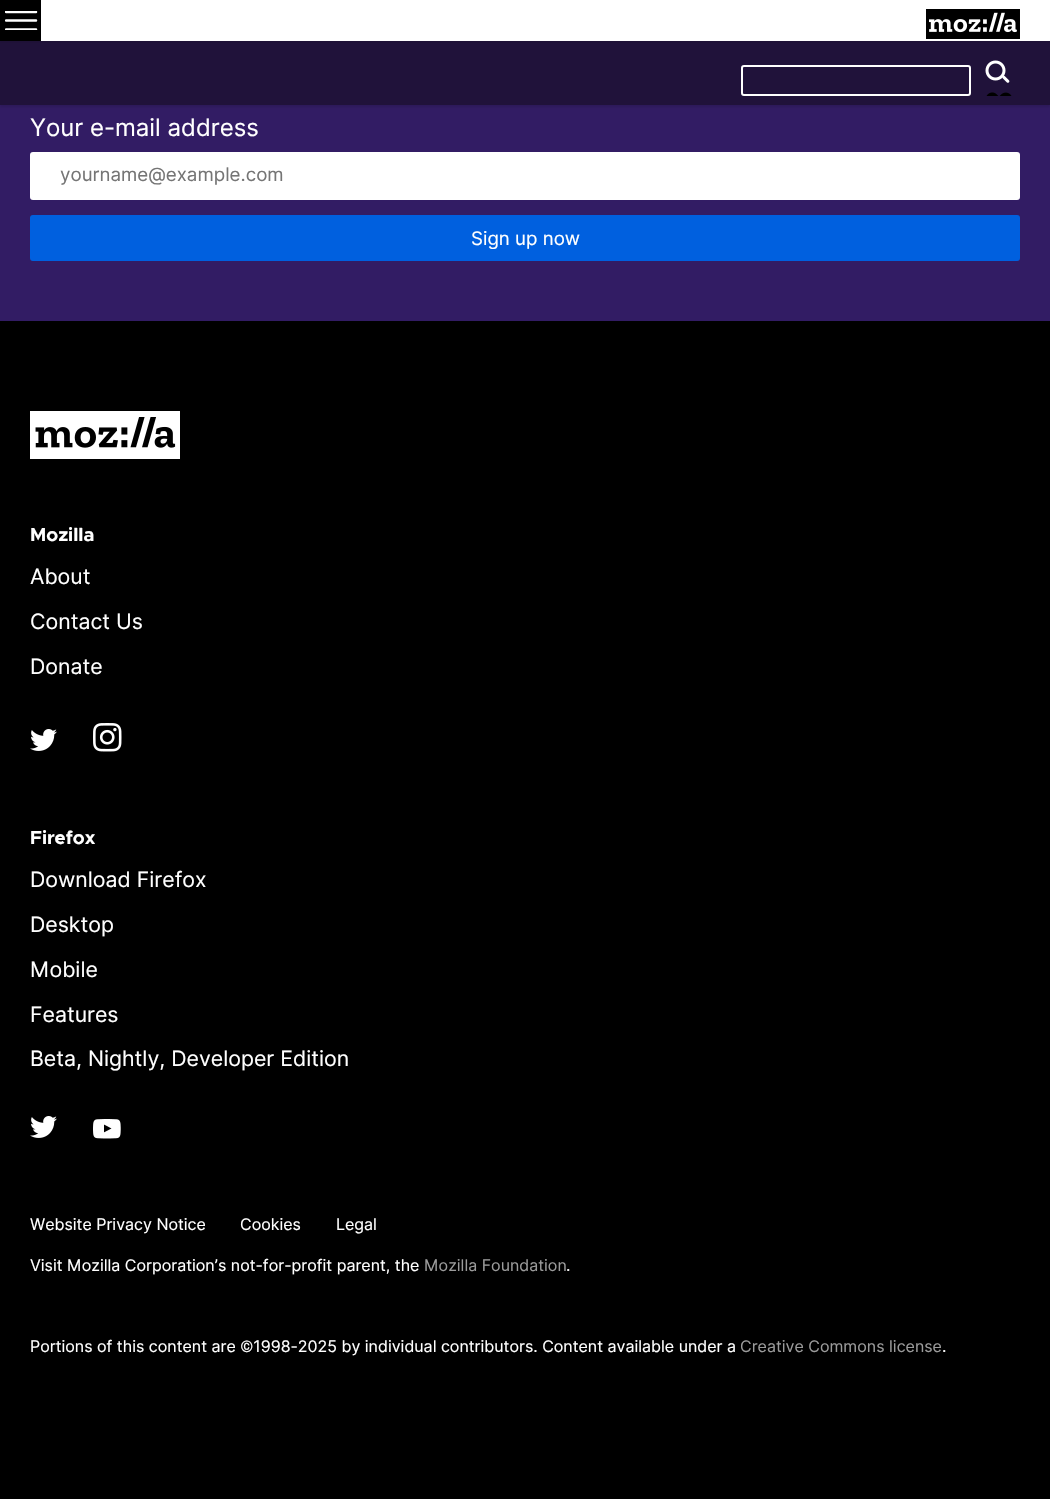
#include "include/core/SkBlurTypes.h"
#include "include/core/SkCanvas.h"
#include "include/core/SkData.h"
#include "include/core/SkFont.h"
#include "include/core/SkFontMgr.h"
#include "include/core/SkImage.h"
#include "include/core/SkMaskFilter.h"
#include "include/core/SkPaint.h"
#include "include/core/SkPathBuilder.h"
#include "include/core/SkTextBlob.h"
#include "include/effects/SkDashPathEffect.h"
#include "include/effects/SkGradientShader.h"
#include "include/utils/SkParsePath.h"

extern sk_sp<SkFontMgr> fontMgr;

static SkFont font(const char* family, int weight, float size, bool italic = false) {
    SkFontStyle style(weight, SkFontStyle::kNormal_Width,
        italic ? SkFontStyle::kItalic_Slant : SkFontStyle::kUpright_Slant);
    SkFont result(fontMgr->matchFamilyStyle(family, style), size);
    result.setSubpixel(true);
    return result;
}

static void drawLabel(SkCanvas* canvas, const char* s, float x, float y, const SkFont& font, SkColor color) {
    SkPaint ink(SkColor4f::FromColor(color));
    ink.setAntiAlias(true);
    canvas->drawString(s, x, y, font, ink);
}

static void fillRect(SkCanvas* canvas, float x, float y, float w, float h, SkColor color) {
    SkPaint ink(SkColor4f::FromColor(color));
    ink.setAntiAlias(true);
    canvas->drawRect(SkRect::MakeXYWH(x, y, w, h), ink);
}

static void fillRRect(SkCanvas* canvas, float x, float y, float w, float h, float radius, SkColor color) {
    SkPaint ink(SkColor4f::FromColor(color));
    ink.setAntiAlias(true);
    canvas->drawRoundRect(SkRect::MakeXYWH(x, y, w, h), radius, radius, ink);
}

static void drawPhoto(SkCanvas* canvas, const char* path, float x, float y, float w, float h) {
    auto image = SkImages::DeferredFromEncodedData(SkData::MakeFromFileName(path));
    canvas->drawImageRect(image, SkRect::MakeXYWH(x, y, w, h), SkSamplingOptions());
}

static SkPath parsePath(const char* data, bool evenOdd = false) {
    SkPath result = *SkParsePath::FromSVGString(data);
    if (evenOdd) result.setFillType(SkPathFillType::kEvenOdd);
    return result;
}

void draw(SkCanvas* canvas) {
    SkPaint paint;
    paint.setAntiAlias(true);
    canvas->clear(0xFF321C64);
    paint.setColor(0x1A000000);
    paint.setMaskFilter(SkMaskFilter::MakeBlur(kNormal_SkBlurStyle, 1));
    canvas->drawRect(SkRect::MakeXYWH(0, 42, 1050, 65), paint);
    paint.setMaskFilter(nullptr);
    fillRect(canvas, 0, 41, 1050, 64, 0xFF20123A);
    paint.setMaskFilter(SkMaskFilter::MakeBlur(kNormal_SkBlurStyle, 1));
    canvas->drawRect(SkRect::MakeXYWH(0, 2, 1050, 40), paint);
    paint.setMaskFilter(nullptr);
    fillRect(canvas, 41, 0, 1009, 41, 0xFFFFFFFF);
    fillRect(canvas, 0, 0, 41, 41, 0xFF000000);
    canvas->save();
    canvas->clipRect(SkRect::MakeXYWH(5, 11, 33, 19));
    paint.setStroke(true);
    paint.setStrokeWidth(2.5f);
    paint.setStrokeCap(SkPaint::kRound_Cap);
    paint.setStrokeJoin(SkPaint::kRound_Join);
    paint.setColor(0xFFFFFFFF);
    canvas->drawPath(parsePath("M6 12H36M6 20.5H36M6 29.5H36"), paint);
    canvas->restore();
    drawPhoto(canvas, "assets/img1.png", 926, 9, 94, 30);
    paint.setStrokeWidth(2);
    paint.setStrokeCap(SkPaint::kButt_Cap);
    paint.setStrokeJoin(SkPaint::kMiter_Join);
    canvas->drawRoundRect(SkRect::MakeXYWH(742, 66, 228, 29), 2, 2, paint);
    drawPhoto(canvas, "assets/img2.png", 985, 60, 27, 36);
    SkFont font1 = font("Inter", 400, 24);
    drawLabel(canvas, "Your e-mail address", 30, 136, font1, 0xFFFFFFFF);
    fillRRect(canvas, 30, 152, 990, 48, 3, 0xFFFFFFFF);
    SkFont font2 = font("Inter", 400, 18.75f);
    drawLabel(canvas, "yourname@example.com", 60, 181, font2, 0xFF757575);
    paint.setStroke(false);
    paint.setColor(0xFF0060DF);
    canvas->drawRoundRect(SkRect::MakeXYWH(31.5f, 216.5f, 987, 43), 1.5f, 1.5f, paint);
    paint.setStroke(true);
    paint.setStrokeWidth(3);
    canvas->drawRoundRect(SkRect::MakeXYWH(31.5f, 216.5f, 987, 43), 1.5f, 1.5f, paint);
    drawLabel(canvas, "Sign up now", 471, 245, font2, 0xFFFFFFFF);
    fillRect(canvas, 0, 321, 1050, 1178, 0xFF000000);
    drawPhoto(canvas, "assets/img3.png", 30, 411, 150, 48);
    SkFont font3 = font("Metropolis", 700, 18.75f);
    drawLabel(canvas, "Mozilla", 30, 541, font3, 0xFFFFFFFF);
    SkFont font4 = font("Inter", 400, 21.3f);
    drawLabel(canvas, "About", 30, 584, font4, 0xFFFFFFFF);
    drawLabel(canvas, "Contact Us", 30, 629, font4, 0xFFFFFFFF);
    drawLabel(canvas, "Donate", 30, 674, font4, 0xFFFFFFFF);
    drawPhoto(canvas, "assets/img4.png", 30, 729, 27, 22);
    drawPhoto(canvas, "assets/img5.png", 93, 723, 29, 29);
    drawLabel(canvas, "Firefox", 30, 844, font3, 0xFFFFFFFF);
    drawLabel(canvas, "Download Firefox", 30, 887, font4, 0xFFFFFFFF);
    drawLabel(canvas, "Desktop", 30, 932, font4, 0xFFFFFFFF);
    drawLabel(canvas, "Mobile", 30, 977, font4, 0xFFFFFFFF);
    drawLabel(canvas, "Features", 30, 1022, font4, 0xFFFFFFFF);
    drawLabel(canvas, "Beta, Nightly, Developer Edition", 30, 1066, font4, 0xFFFFFFFF);
    drawPhoto(canvas, "assets/img4.png", 30, 1116, 27, 22);
    drawPhoto(canvas, "assets/img6.png", 93, 1119, 28, 20);
    SkFont font5 = font("Inter", 400, 16);
    drawLabel(canvas, "Website Privacy Notice", 30, 1230, font5, 0xFFFFFFFF);
    drawLabel(canvas, "Cookies", 240, 1230, font5, 0xFFFFFFFF);
    drawLabel(canvas, "Legal", 336, 1230, font5, 0xFFFFFFFF);
    drawLabel(canvas, "Visit Mozilla Corporation’s not-for-profit parent, the", 30, 1271, font5, 0xFFFFFFFF);
    drawLabel(canvas, "Mozilla Foundation", 424, 1271, font5, 0xFF9B9B9B);
    drawLabel(canvas, ".", 566, 1271, font5, 0xFFFFFFFF);
    drawLabel(canvas, "Portions of this content are ©1998-2025 by individual contributors. Content available under a", 30, 1352, font5, 0xFFFFFFFF);
    drawLabel(canvas, "Creative Commons license", 740, 1352, font5, 0xFF9B9B9B);
    drawLabel(canvas, ".", 942, 1352, font5, 0xFFFFFFFF);
}
